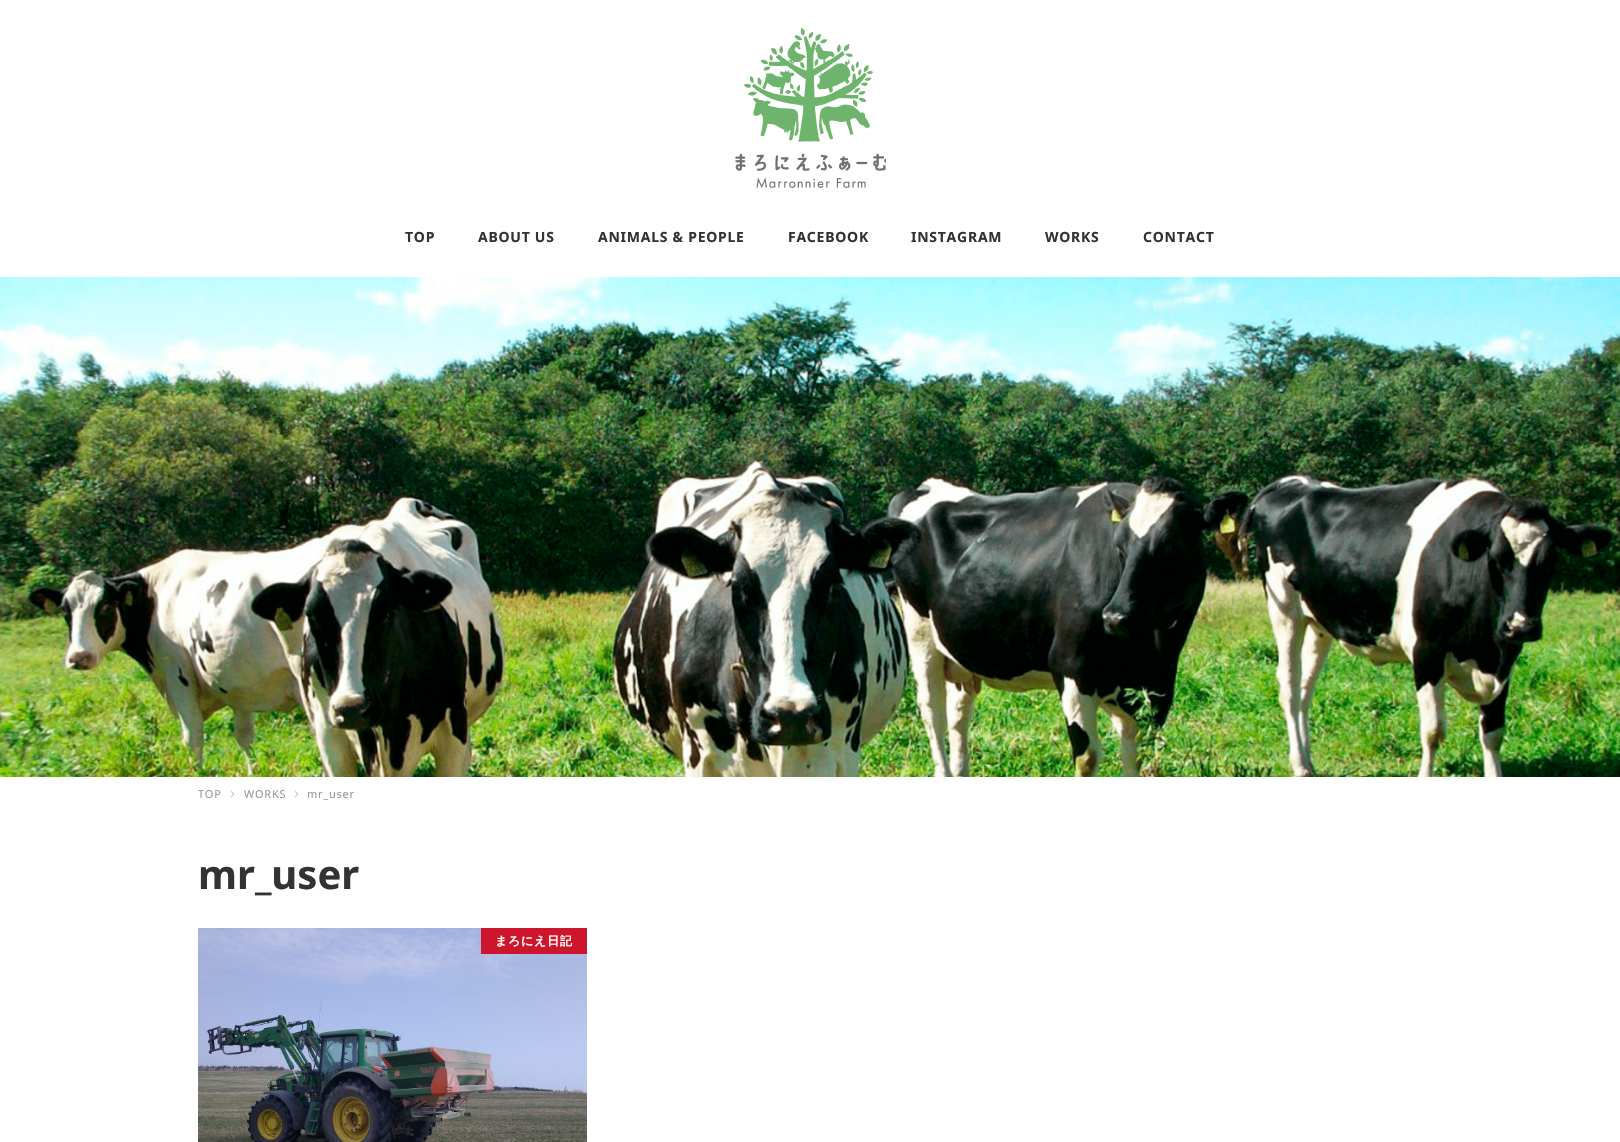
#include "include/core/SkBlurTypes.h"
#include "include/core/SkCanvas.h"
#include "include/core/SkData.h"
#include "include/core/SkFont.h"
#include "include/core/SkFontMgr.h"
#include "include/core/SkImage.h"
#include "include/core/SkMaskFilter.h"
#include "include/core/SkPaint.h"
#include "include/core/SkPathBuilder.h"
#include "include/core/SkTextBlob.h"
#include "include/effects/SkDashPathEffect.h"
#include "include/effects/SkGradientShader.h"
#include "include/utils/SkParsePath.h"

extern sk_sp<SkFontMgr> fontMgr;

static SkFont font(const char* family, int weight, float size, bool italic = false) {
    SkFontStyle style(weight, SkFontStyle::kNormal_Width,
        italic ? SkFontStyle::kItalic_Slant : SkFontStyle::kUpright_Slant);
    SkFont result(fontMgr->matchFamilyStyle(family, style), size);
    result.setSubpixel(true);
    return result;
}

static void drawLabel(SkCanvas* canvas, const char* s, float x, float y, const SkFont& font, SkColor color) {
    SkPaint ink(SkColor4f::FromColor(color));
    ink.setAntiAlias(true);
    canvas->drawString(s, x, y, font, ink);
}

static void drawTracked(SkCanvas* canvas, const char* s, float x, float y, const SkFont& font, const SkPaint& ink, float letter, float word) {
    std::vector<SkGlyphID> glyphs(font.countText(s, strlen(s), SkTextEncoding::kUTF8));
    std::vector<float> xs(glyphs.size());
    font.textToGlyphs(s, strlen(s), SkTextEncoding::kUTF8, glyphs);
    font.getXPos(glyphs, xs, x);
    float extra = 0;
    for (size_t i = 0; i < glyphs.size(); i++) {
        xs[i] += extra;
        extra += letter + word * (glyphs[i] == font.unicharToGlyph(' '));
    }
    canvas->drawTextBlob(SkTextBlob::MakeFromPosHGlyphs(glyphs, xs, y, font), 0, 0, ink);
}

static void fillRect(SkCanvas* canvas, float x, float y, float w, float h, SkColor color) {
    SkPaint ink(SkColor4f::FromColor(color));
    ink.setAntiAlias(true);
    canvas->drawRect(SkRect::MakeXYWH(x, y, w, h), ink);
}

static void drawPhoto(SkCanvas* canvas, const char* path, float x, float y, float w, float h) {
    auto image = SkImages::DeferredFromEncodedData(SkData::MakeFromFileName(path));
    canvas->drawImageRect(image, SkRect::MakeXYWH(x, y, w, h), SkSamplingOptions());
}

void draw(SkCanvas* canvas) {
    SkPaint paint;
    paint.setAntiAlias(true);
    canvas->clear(0xFFFFFFFF);
    drawPhoto(canvas, "assets/img1.png", 735, 28, 151, 160);
    SkFont font1 = font("Noto Sans", 700, 14);
    paint.setColor(0xFF333333);
    drawTracked(canvas, "TOP", 405, 242, font1, paint, 0.75f, 0);
    drawTracked(canvas, "ABOUT US", 478, 242, font1, paint, 0.75f, 0);
    drawTracked(canvas, "ANIMALS & PEOPLE", 598, 242, font1, paint, 0.75f, 0);
    drawTracked(canvas, "FACEBOOK", 788, 242, font1, paint, 0.75f, 0);
    drawTracked(canvas, "INSTAGRAM", 911, 242, font1, paint, 0.75f, 0);
    drawTracked(canvas, "WORKS", 1045, 242, font1, paint, 0.75f, 0);
    drawTracked(canvas, "CONTACT", 1143, 242, font1, paint, 0.75f, 0);
    drawPhoto(canvas, "assets/img2.png", 0, 277, 1620, 500);
    SkFont font2 = font("Noto Sans", 400, 11);
    paint.setColor(0xFF999999);
    drawTracked(canvas, "TOP", 198, 798, font2, paint, 0.75f, 0);
    drawPhoto(canvas, "assets/img3.png", 231, 791, 4, 7);
    drawTracked(canvas, "WORKS", 244, 798, font2, paint, 0.75f, 0);
    drawPhoto(canvas, "assets/img3.png", 295, 791, 4, 7);
    drawTracked(canvas, "mr_user", 307, 798, font2, paint, 0.75f, 0);
    SkFont font3 = font("Noto Sans", 700, 40);
    drawLabel(canvas, "mr_user", 198, 889, font3, 0xFF333333);
    drawPhoto(canvas, "assets/img4.png", 198, 928, 389, 214);
    fillRect(canvas, 481, 928, 106, 26, 0xFFCD162C);
    SkFont font4 = font("WenQuanYi Zen Hei", 700, 12);
    paint.setColor(0xFFFFFFFF);
    drawTracked(canvas, "まろにえ日記", 495, 945, font4, paint, 0.75f, 0);
}
